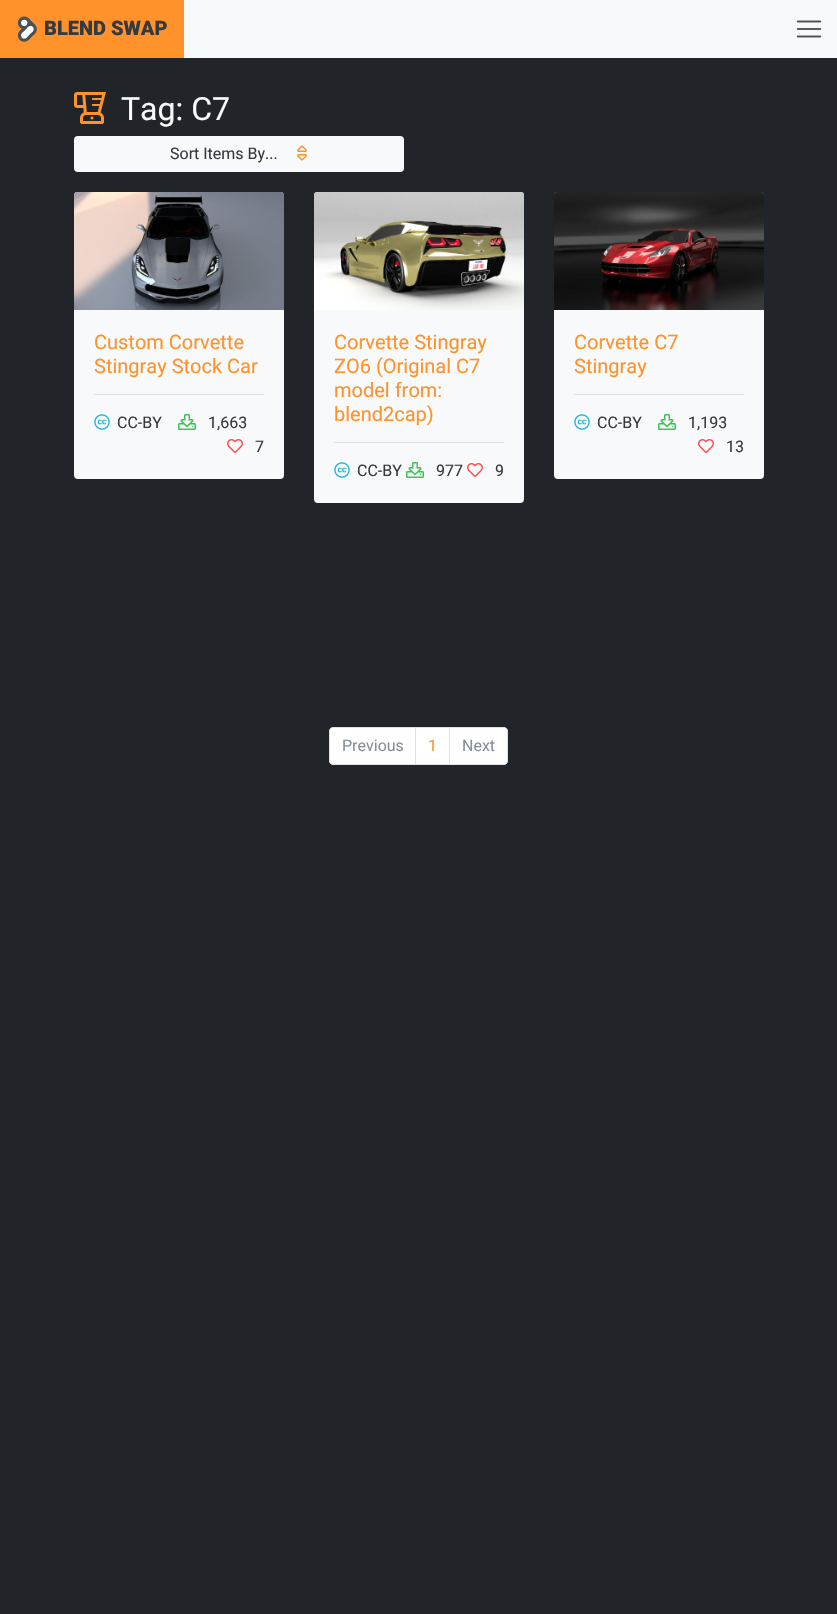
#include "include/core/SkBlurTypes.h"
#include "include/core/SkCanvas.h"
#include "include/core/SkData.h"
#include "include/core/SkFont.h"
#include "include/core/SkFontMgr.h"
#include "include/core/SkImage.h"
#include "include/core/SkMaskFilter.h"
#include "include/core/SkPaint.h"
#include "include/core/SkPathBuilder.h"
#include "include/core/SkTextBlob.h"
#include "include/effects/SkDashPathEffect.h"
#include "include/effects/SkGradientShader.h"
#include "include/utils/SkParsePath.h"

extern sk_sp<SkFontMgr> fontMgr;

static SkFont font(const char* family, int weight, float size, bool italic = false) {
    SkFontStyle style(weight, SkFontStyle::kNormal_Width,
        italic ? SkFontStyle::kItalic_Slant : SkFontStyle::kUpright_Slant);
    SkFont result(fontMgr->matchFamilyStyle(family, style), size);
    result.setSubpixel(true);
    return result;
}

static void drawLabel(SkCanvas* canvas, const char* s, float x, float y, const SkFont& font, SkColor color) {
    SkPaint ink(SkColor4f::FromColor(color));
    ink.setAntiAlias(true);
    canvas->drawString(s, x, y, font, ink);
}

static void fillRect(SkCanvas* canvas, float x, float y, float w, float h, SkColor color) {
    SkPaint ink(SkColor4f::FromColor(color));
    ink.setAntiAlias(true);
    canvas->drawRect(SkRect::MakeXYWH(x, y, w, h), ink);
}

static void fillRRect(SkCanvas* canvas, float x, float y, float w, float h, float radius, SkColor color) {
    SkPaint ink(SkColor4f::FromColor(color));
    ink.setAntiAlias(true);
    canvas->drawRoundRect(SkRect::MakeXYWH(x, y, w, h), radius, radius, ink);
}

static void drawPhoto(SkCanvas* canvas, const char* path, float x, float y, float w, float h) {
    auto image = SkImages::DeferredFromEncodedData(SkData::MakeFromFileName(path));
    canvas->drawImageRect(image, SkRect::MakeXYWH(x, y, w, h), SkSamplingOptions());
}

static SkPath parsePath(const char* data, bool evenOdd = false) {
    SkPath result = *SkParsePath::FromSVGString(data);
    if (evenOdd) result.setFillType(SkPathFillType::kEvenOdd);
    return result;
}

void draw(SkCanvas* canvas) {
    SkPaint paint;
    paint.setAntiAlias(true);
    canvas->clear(0xFF212529);
    fillRect(canvas, 184, 0, 653, 58, 0xFFF8F9FA);
    fillRect(canvas, 0, 0, 184, 58, 0xFFFF922B);
    drawPhoto(canvas, "assets/img1.png", 17, 16, 20, 26);
    SkFont font1 = font("Roboto", 900, 20);
    drawLabel(canvas, "BLEND SWAP", 44, 35, font1, 0xFF343A40);
    drawPhoto(canvas, "assets/img2.png", 796, 20, 26, 18);
    drawPhoto(canvas, "assets/img3.png", 74, 92, 32, 32);
    SkFont font2 = font("Roboto", 400, 32);
    drawLabel(canvas, "Tag: C7", 121, 120, font2, 0xFFF8F9FA);
    fillRRect(canvas, 74, 136, 330, 36, 4, 0xFFF8F9FA);
    SkFont font3 = font("Roboto", 400, 16);
    drawLabel(canvas, "Sort Items By...", 170, 159, font3, 0xFF343A40);
    drawPhoto(canvas, "assets/img4.png", 297, 145, 10, 16);
    fillRRect(canvas, 74, 192, 210, 287, 4, 0xFFF8F9FA);
    drawPhoto(canvas, "assets/img5.png", 74, 192, 210, 118);
    SkFont font4 = font("Roboto", 400, 20);
    drawLabel(canvas, "Custom Corvette", 94, 349, font4, 0xFFFF922B);
    drawLabel(canvas, "Stingray Stock Car", 94, 373, font4, 0xFFFF922B);
    fillRect(canvas, 94, 394, 170, 1, 0xFFDFE0E1);
    drawPhoto(canvas, "assets/img6.png", 94, 414, 16, 16);
    drawLabel(canvas, "CC-BY", 117, 428, font3, 0xFF343A40);
    drawPhoto(canvas, "assets/img7.png", 178, 414, 18, 16);
    drawLabel(canvas, "1,663", 208, 428, font3, 0xFF343A40);
    drawPhoto(canvas, "assets/img8.png", 227, 439, 16, 14);
    drawLabel(canvas, "7", 255, 452, font3, 0xFF343A40);
    fillRRect(canvas, 314, 192, 210, 311, 4, 0xFFF8F9FA);
    drawPhoto(canvas, "assets/img9.png", 314, 192, 210, 118);
    drawLabel(canvas, "Corvette Stingray", 334, 349, font4, 0xFFFF922B);
    drawLabel(canvas, "ZO6 (Original C7", 334, 373, font4, 0xFFFF922B);
    drawLabel(canvas, "model from:", 334, 397, font4, 0xFFFF922B);
    drawLabel(canvas, "blend2cap)", 334, 421, font4, 0xFFFF922B);
    fillRect(canvas, 334, 442, 170, 1, 0xFFDFE0E1);
    drawPhoto(canvas, "assets/img6.png", 334, 462, 16, 16);
    drawLabel(canvas, "CC-BY", 357, 476, font3, 0xFF343A40);
    drawPhoto(canvas, "assets/img7.png", 406, 462, 18, 16);
    drawLabel(canvas, "977", 436, 476, font3, 0xFF343A40);
    drawPhoto(canvas, "assets/img8.png", 467, 463, 16, 14);
    drawLabel(canvas, "9", 495, 476, font3, 0xFF343A40);
    fillRRect(canvas, 554, 192, 210, 287, 4, 0xFFF8F9FA);
    drawPhoto(canvas, "assets/img10.png", 554, 192, 210, 118);
    drawLabel(canvas, "Corvette C7", 574, 349, font4, 0xFFFF922B);
    drawLabel(canvas, "Stingray", 574, 373, font4, 0xFFFF922B);
    fillRect(canvas, 574, 394, 170, 1, 0xFFDFE0E1);
    drawPhoto(canvas, "assets/img6.png", 574, 414, 16, 16);
    drawLabel(canvas, "CC-BY", 597, 428, font3, 0xFF343A40);
    drawPhoto(canvas, "assets/img7.png", 658, 414, 18, 16);
    drawLabel(canvas, "1,193", 688, 428, font3, 0xFF343A40);
    drawPhoto(canvas, "assets/img8.png", 698, 439, 16, 14);
    drawLabel(canvas, "13", 726, 452, font3, 0xFF343A40);
    paint.setColor(0xFFFFFFFF);
    canvas->drawPath(parsePath("M333 727.5H415.5V764.5H333C331 764.5 329.5 763 329.5 761V731C329.5 729 331 727.5 333 727.5Z"), paint);
    paint.setStroke(true);
    paint.setStrokeWidth(1);
    paint.setColor(0xFFDEE2E6);
    canvas->drawPath(parsePath("M333 727.5H415.5V764.5H333C331 764.5 329.5 763 329.5 761V731C329.5 729 331 727.5 333 727.5Z"), paint);
    drawLabel(canvas, "Previous", 342, 751, font3, 0xFF868E96);
    paint.setStroke(false);
    paint.setColor(0xFFFFFFFF);
    canvas->drawRect(SkRect::MakeXYWH(415.5f, 727.5f, 34, 37), paint);
    paint.setStroke(true);
    paint.setColor(0xFFDEE2E6);
    canvas->drawRect(SkRect::MakeXYWH(415.5f, 727.5f, 34, 37), paint);
    drawLabel(canvas, "1", 428, 751, font3, 0xFFFF922B);
    paint.setStroke(false);
    paint.setColor(0xFFFFFFFF);
    canvas->drawPath(parsePath("M449.5 727.5H504C506 727.5 507.5 729 507.5 731V761C507.5 763 506 764.5 504 764.5H449.5Z"), paint);
    paint.setStroke(true);
    paint.setColor(0xFFDEE2E6);
    canvas->drawPath(parsePath("M449.5 727.5H504C506 727.5 507.5 729 507.5 731V761C507.5 763 506 764.5 504 764.5H449.5Z"), paint);
    drawLabel(canvas, "Next", 462, 751, font3, 0xFF868E96);
}
